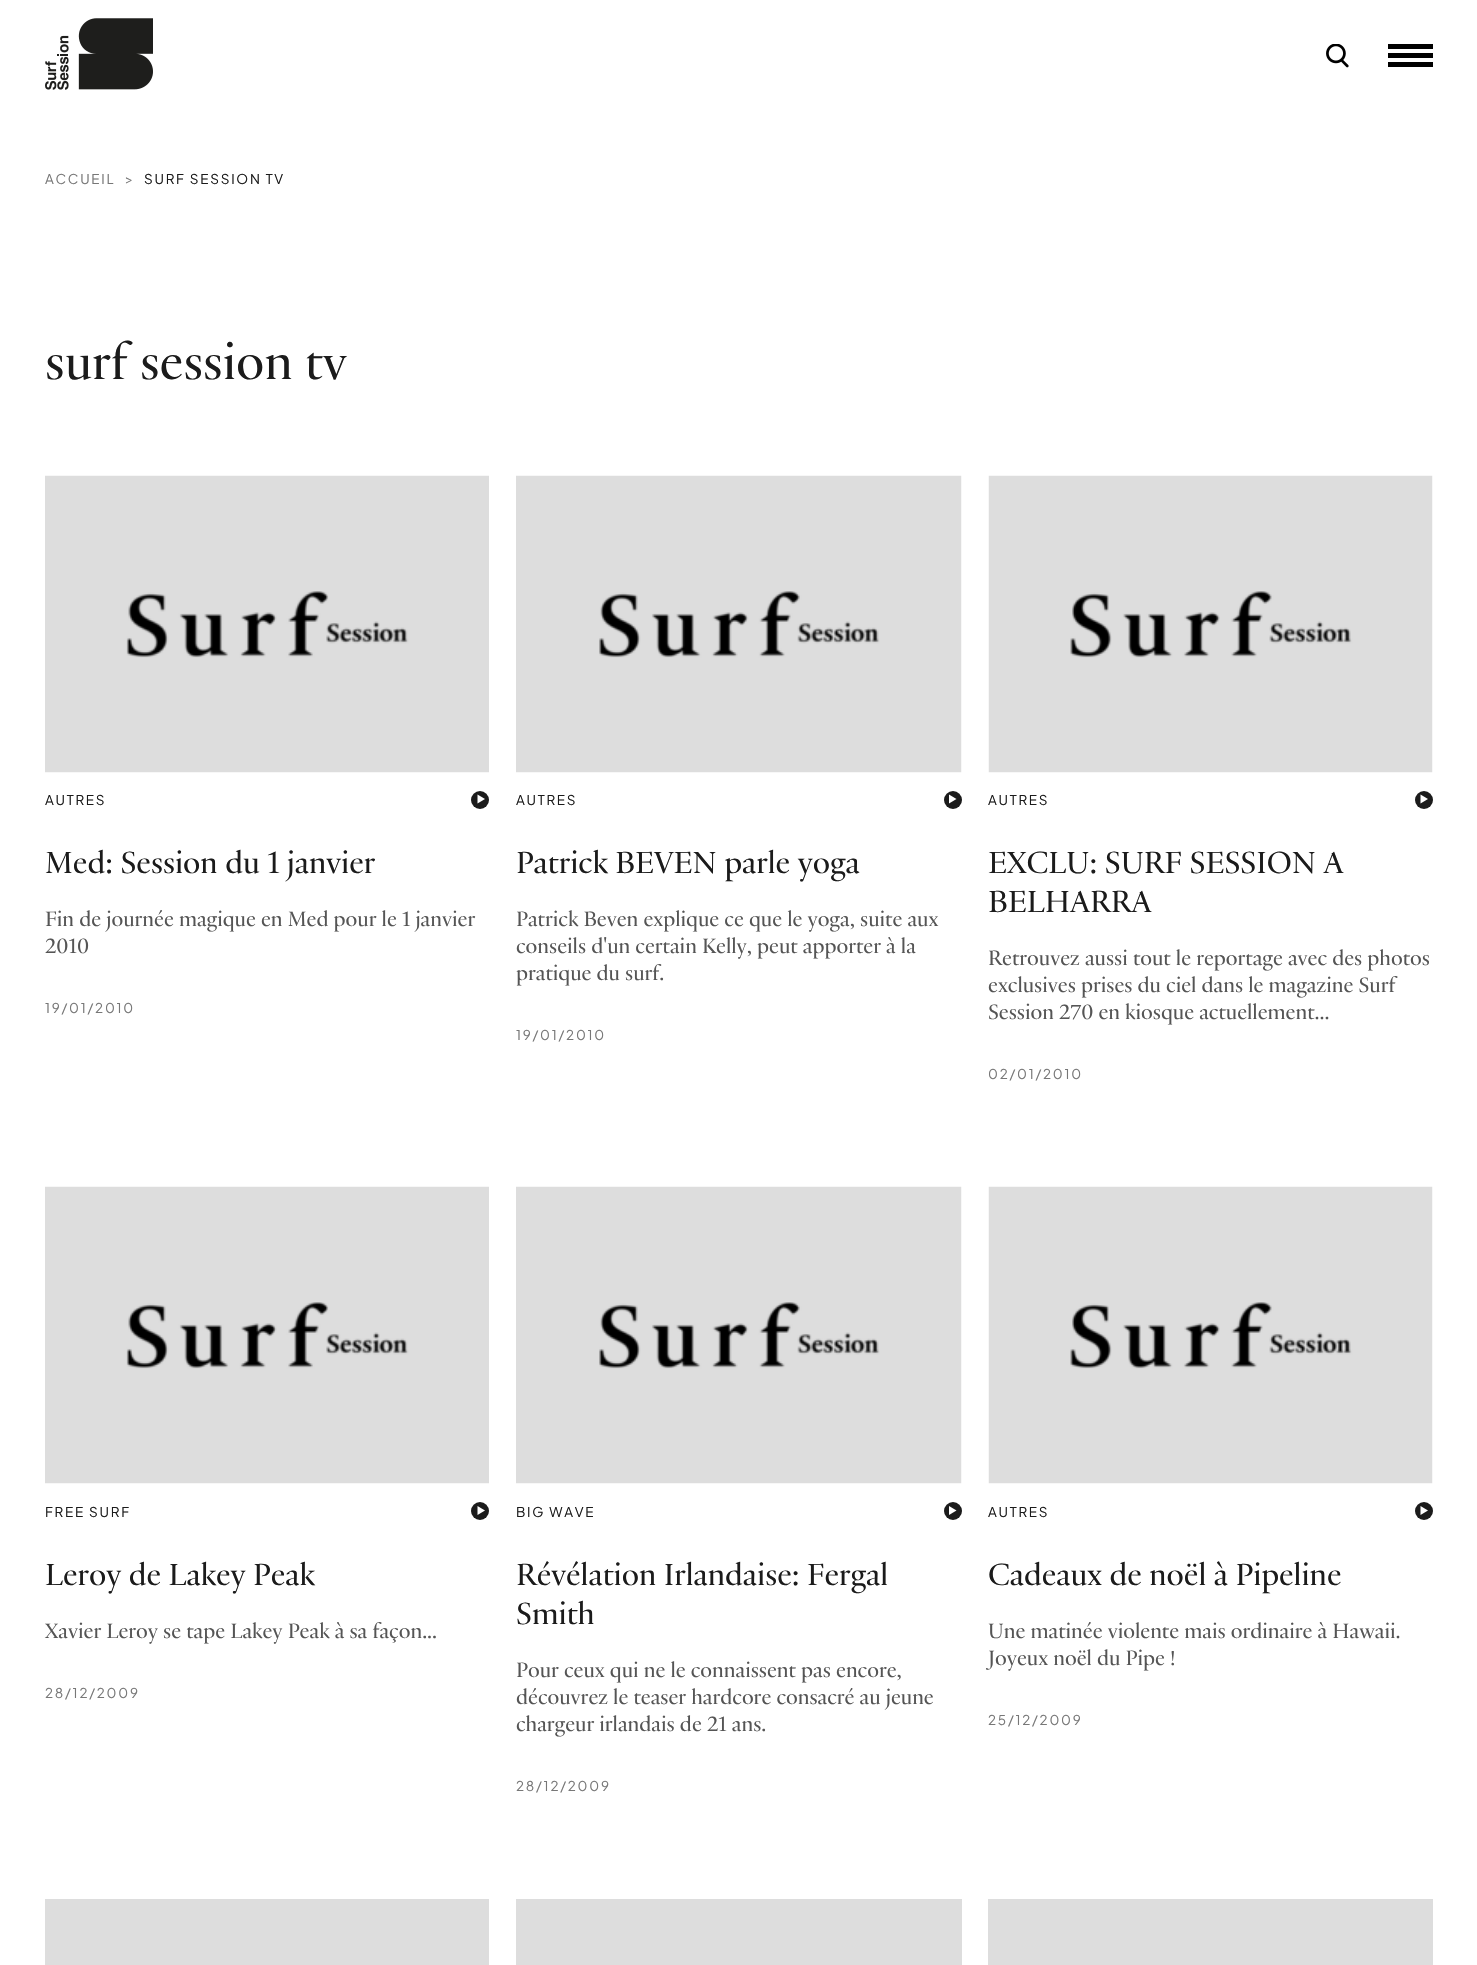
#include "include/core/SkBlurTypes.h"
#include "include/core/SkCanvas.h"
#include "include/core/SkData.h"
#include "include/core/SkFont.h"
#include "include/core/SkFontMgr.h"
#include "include/core/SkImage.h"
#include "include/core/SkMaskFilter.h"
#include "include/core/SkPaint.h"
#include "include/core/SkPathBuilder.h"
#include "include/core/SkTextBlob.h"
#include "include/effects/SkDashPathEffect.h"
#include "include/effects/SkGradientShader.h"
#include "include/utils/SkParsePath.h"

extern sk_sp<SkFontMgr> fontMgr;

static SkFont font(const char* family, int weight, float size, bool italic = false) {
    SkFontStyle style(weight, SkFontStyle::kNormal_Width,
        italic ? SkFontStyle::kItalic_Slant : SkFontStyle::kUpright_Slant);
    SkFont result(fontMgr->matchFamilyStyle(family, style), size);
    result.setSubpixel(true);
    return result;
}

static void drawLabel(SkCanvas* canvas, const char* s, float x, float y, const SkFont& font, SkColor color) {
    SkPaint ink(SkColor4f::FromColor(color));
    ink.setAntiAlias(true);
    canvas->drawString(s, x, y, font, ink);
}

static void drawTracked(SkCanvas* canvas, const char* s, float x, float y, const SkFont& font, const SkPaint& ink, float letter, float word) {
    std::vector<SkGlyphID> glyphs(font.countText(s, strlen(s), SkTextEncoding::kUTF8));
    std::vector<float> xs(glyphs.size());
    font.textToGlyphs(s, strlen(s), SkTextEncoding::kUTF8, glyphs);
    font.getXPos(glyphs, xs, x);
    float extra = 0;
    for (size_t i = 0; i < glyphs.size(); i++) {
        xs[i] += extra;
        extra += letter + word * (glyphs[i] == font.unicharToGlyph(' '));
    }
    canvas->drawTextBlob(SkTextBlob::MakeFromPosHGlyphs(glyphs, xs, y, font), 0, 0, ink);
}

static void fillRect(SkCanvas* canvas, float x, float y, float w, float h, SkColor color) {
    SkPaint ink(SkColor4f::FromColor(color));
    ink.setAntiAlias(true);
    canvas->drawRect(SkRect::MakeXYWH(x, y, w, h), ink);
}

static void drawPhoto(SkCanvas* canvas, const char* path, float x, float y, float w, float h) {
    auto image = SkImages::DeferredFromEncodedData(SkData::MakeFromFileName(path));
    canvas->drawImageRect(image, SkRect::MakeXYWH(x, y, w, h), SkSamplingOptions());
}

static SkPath parsePath(const char* data, bool evenOdd = false) {
    SkPath result = *SkParsePath::FromSVGString(data);
    if (evenOdd) result.setFillType(SkPathFillType::kEvenOdd);
    return result;
}

void draw(SkCanvas* canvas) {
    SkPaint paint;
    paint.setAntiAlias(true);
    canvas->clear(0xFFFFFFFF);
    drawPhoto(canvas, "assets/img1.png", 45, 18, 108, 72);
    drawPhoto(canvas, "assets/img2.png", 1326, 44, 23, 24);
    fillRect(canvas, 1388, 44, 45, 5, 0xFF000000);
    fillRect(canvas, 1388, 53, 45, 5, 0xFF000000);
    fillRect(canvas, 1388, 62, 45, 5, 0xFF000000);
    SkFont font1 = font("Plus Jakarta Sans", 400, 13.5f);
    paint.setColor(0xFF777777);
    drawTracked(canvas, "ACCUEIL", 45, 184, font1, paint, 1.75f, 0);
    drawTracked(canvas, ">", 125, 184, font1, paint, 1.75f, 0);
    paint.setColor(0xFF1B1B1B);
    drawTracked(canvas, "SURF SESSION TV", 144, 184, font1, paint, 1.75f, 0);
    SkFont font2 = font("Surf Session", 400, 54);
    drawLabel(canvas, "surf session tv", 45, 379, font2, 0xFF1B1B1B);
    drawPhoto(canvas, "assets/img3.png", 45, 475, 444, 298);
    drawTracked(canvas, "AUTRES", 45, 805, font1, paint, 1.75f, 0);
    canvas->drawCircle(480, 800, 9, paint);
    paint.setColor(0xFFFFFFFF);
    canvas->drawPath(parsePath("M477.5 803.5V794.5L485 799Z"), paint);
    SkFont font3 = font("Surf Session", 400, 33);
    drawLabel(canvas, "Med: Session du 1 janvier", 45, 873, font3, 0xFF1B1B1B);
    SkFont font4 = font("Surf Session", 400, 22.4f);
    drawLabel(canvas, "Fin de journée magique en Med pour le 1 janvier", 45, 926, font4, 0xFF555555);
    drawLabel(canvas, "2010", 45, 953, font4, 0xFF555555);
    paint.setColor(0xFF777777);
    drawTracked(canvas, "19/01/2010", 45, 1013, font1, paint, 1.75f, 0);
    drawPhoto(canvas, "assets/img4.png", 516, 475, 446, 298);
    paint.setColor(0xFF1B1B1B);
    drawTracked(canvas, "AUTRES", 516, 805, font1, paint, 1.75f, 0);
    canvas->drawCircle(953, 800, 9, paint);
    paint.setColor(0xFFFFFFFF);
    canvas->drawPath(parsePath("M949 803.5V794.5L956.5 799Z"), paint);
    drawLabel(canvas, "Patrick BEVEN parle yoga", 516, 873, font3, 0xFF1B1B1B);
    drawLabel(canvas, "Patrick Beven explique ce que le yoga, suite aux", 516, 926, font4, 0xFF555555);
    drawLabel(canvas, "conseils d'un certain Kelly, peut apporter à la", 516, 953, font4, 0xFF555555);
    drawLabel(canvas, "pratique du surf.", 516, 980, font4, 0xFF555555);
    paint.setColor(0xFF777777);
    drawTracked(canvas, "19/01/2010", 516, 1040, font1, paint, 1.75f, 0);
    drawPhoto(canvas, "assets/img5.png", 988, 475, 445, 298);
    paint.setColor(0xFF1B1B1B);
    drawTracked(canvas, "AUTRES", 988, 805, font1, paint, 1.75f, 0);
    canvas->drawCircle(1424, 800, 9, paint);
    paint.setColor(0xFFFFFFFF);
    canvas->drawPath(parsePath("M1420.5 803.5V794.5L1428 799Z"), paint);
    drawLabel(canvas, "EXCLU: SURF SESSION A", 988, 873, font3, 0xFF1B1B1B);
    drawLabel(canvas, "BELHARRA", 988, 912, font3, 0xFF1B1B1B);
    drawLabel(canvas, "Retrouvez aussi tout le reportage avec des photos", 988, 965, font4, 0xFF555555);
    drawLabel(canvas, "exclusives prises du ciel dans le magazine Surf", 988, 992, font4, 0xFF555555);
    drawLabel(canvas, "Session 270 en kiosque actuellement...", 988, 1019, font4, 0xFF555555);
    paint.setColor(0xFF777777);
    drawTracked(canvas, "02/01/2010", 988, 1079, font1, paint, 1.75f, 0);
    drawPhoto(canvas, "assets/img3.png", 45, 1186, 444, 298);
    paint.setColor(0xFF1B1B1B);
    drawTracked(canvas, "FREE SURF", 45, 1517, font1, paint, 1.75f, 0);
    canvas->drawCircle(480, 1511, 9, paint);
    paint.setColor(0xFFFFFFFF);
    canvas->drawPath(parsePath("M477.5 1515V1506L485 1510.5Z"), paint);
    drawLabel(canvas, "Leroy de Lakey Peak", 45, 1585, font3, 0xFF1B1B1B);
    drawLabel(canvas, "Xavier Leroy se tape Lakey Peak à sa façon...", 45, 1638, font4, 0xFF555555);
    paint.setColor(0xFF777777);
    drawTracked(canvas, "28/12/2009", 45, 1698, font1, paint, 1.75f, 0);
    drawPhoto(canvas, "assets/img4.png", 516, 1186, 446, 298);
    paint.setColor(0xFF1B1B1B);
    drawTracked(canvas, "BIG WAVE", 516, 1517, font1, paint, 1.75f, 0);
    canvas->drawCircle(953, 1511, 9, paint);
    paint.setColor(0xFFFFFFFF);
    canvas->drawPath(parsePath("M949 1515V1506L956.5 1510.5Z"), paint);
    drawLabel(canvas, "Révélation Irlandaise: Fergal", 516, 1585, font3, 0xFF1B1B1B);
    drawLabel(canvas, "Smith", 516, 1624, font3, 0xFF1B1B1B);
    drawLabel(canvas, "Pour ceux qui ne le connaissent pas encore,", 516, 1677, font4, 0xFF555555);
    drawLabel(canvas, "découvrez le teaser hardcore consacré au jeune", 516, 1704, font4, 0xFF555555);
    drawLabel(canvas, "chargeur irlandais de 21 ans.", 516, 1731, font4, 0xFF555555);
    paint.setColor(0xFF777777);
    drawTracked(canvas, "28/12/2009", 516, 1791, font1, paint, 1.75f, 0);
    drawPhoto(canvas, "assets/img5.png", 988, 1186, 445, 298);
    paint.setColor(0xFF1B1B1B);
    drawTracked(canvas, "AUTRES", 988, 1517, font1, paint, 1.75f, 0);
    canvas->drawCircle(1424, 1511, 9, paint);
    paint.setColor(0xFFFFFFFF);
    canvas->drawPath(parsePath("M1420.5 1515V1506L1428 1510.5Z"), paint);
    drawLabel(canvas, "Cadeaux de noël à Pipeline", 988, 1585, font3, 0xFF1B1B1B);
    drawLabel(canvas, "Une matinée violente mais ordinaire à Hawaii.", 988, 1638, font4, 0xFF555555);
    drawLabel(canvas, "Joyeux noël du Pipe !", 988, 1665, font4, 0xFF555555);
    paint.setColor(0xFF777777);
    drawTracked(canvas, "25/12/2009", 988, 1725, font1, paint, 1.75f, 0);
    fillRect(canvas, 45, 1899, 444, 66, 0xFFDDDDDD);
    fillRect(canvas, 516, 1899, 446, 66, 0xFFDDDDDD);
    fillRect(canvas, 988, 1899, 445, 66, 0xFFDDDDDD);
}
